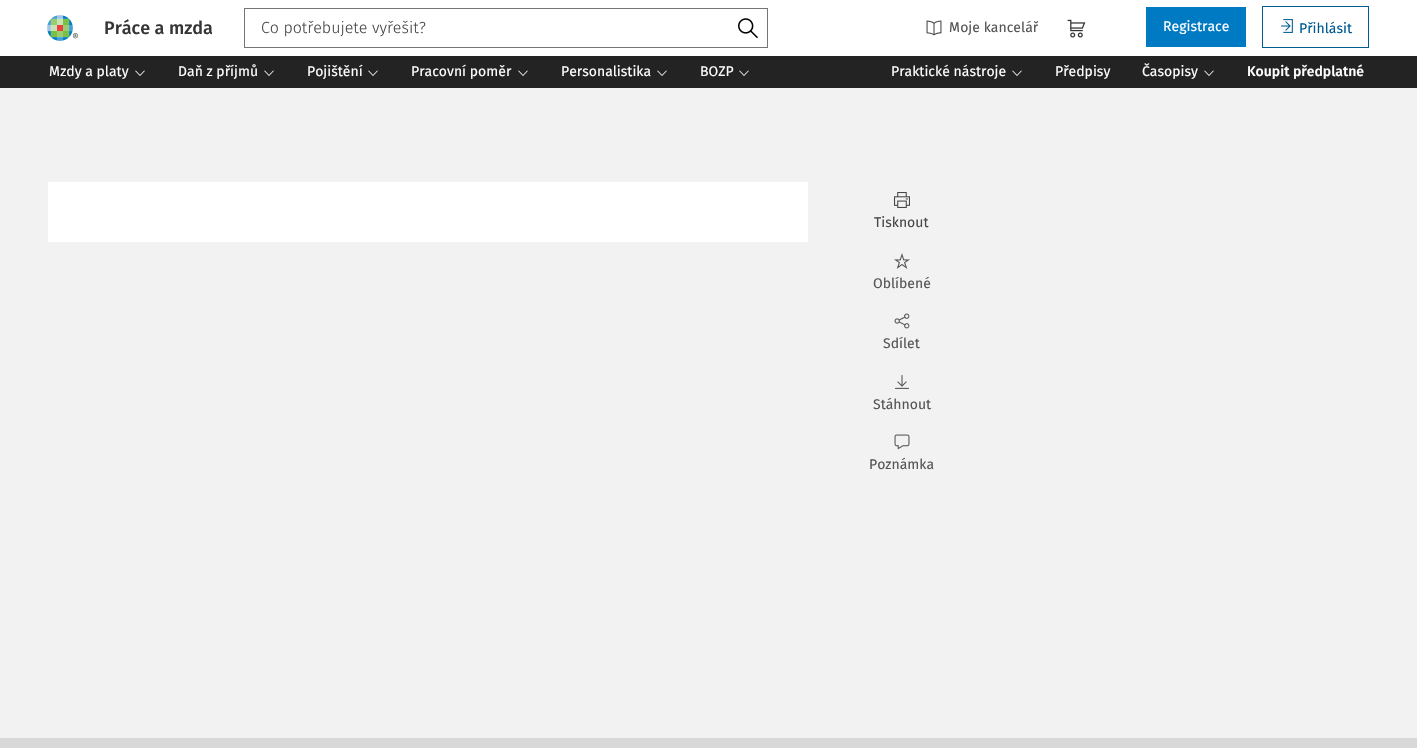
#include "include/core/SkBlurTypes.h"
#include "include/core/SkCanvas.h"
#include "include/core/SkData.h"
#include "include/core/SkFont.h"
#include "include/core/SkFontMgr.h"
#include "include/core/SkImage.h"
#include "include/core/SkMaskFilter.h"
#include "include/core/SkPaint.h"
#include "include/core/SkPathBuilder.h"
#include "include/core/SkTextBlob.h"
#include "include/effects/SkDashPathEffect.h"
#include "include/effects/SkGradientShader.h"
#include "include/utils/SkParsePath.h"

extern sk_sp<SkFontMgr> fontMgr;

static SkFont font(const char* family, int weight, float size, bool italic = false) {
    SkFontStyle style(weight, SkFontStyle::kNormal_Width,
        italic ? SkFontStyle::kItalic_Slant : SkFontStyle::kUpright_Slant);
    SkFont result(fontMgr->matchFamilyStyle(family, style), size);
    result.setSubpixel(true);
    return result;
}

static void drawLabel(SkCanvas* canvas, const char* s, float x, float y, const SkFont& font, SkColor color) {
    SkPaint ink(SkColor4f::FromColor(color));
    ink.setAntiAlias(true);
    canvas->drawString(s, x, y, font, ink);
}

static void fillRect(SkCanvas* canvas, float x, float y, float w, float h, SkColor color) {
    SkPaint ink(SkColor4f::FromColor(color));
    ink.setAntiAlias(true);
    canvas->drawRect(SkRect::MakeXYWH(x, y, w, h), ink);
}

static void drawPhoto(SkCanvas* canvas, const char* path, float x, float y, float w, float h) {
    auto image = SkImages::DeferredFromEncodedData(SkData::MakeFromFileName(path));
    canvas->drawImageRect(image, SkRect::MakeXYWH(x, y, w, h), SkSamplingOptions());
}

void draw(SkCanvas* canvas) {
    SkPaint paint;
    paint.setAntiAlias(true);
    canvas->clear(0xFFFFFFFF);
    drawPhoto(canvas, "assets/img1.png", 47, 15, 32, 26);
    SkFont font1 = font("Fira Sans", 500, 18);
    drawLabel(canvas, "Práce a mzda", 104, 34, font1, 0xFF353535);
    paint.setStroke(true);
    paint.setStrokeWidth(1);
    paint.setColor(0xFF757575);
    canvas->drawRect(SkRect::MakeXYWH(244.5f, 8.5f, 523, 39), paint);
    SkFont font2 = font("Fira Sans", 300, 16);
    drawLabel(canvas, "Co potřebujete vyřešit?", 261, 33, font2, 0xFF474747);
    drawPhoto(canvas, "assets/img2.png", 738, 18, 20, 21);
    drawPhoto(canvas, "assets/img3.png", 926, 20, 16, 16);
    SkFont font3 = font("Fira Sans", 400, 14);
    drawLabel(canvas, "Moje kancelář", 949, 32, font3, 0xFF555555);
    drawPhoto(canvas, "assets/img4.png", 1067, 19, 19, 19);
    fillRect(canvas, 1146, 7, 100, 40, 0xFF007AC3);
    drawLabel(canvas, "Registrace", 1163, 31, font3, 0xFFFFFFFF);
    paint.setColor(0xFF005B92);
    canvas->drawRect(SkRect::MakeXYWH(1262.5f, 6.5f, 106, 41), paint);
    drawPhoto(canvas, "assets/img5.png", 1281, 19, 12, 14);
    drawLabel(canvas, "Přihlásit", 1299, 33, font3, 0xFF005B92);
    fillRect(canvas, 0, 56, 1417, 32, 0xFF232323);
    drawLabel(canvas, "Mzdy a platy", 49, 76, font3, 0xFFFFFFFF);
    drawPhoto(canvas, "assets/img6.png", 135, 70, 10, 6);
    drawLabel(canvas, "Daň z příjmů", 178, 76, font3, 0xFFFFFFFF);
    drawPhoto(canvas, "assets/img6.png", 264, 70, 10, 6);
    drawLabel(canvas, "Pojištění", 307, 76, font3, 0xFFFFFFFF);
    drawPhoto(canvas, "assets/img6.png", 368, 70, 10, 6);
    drawLabel(canvas, "Pracovní poměr", 411, 76, font3, 0xFFFFFFFF);
    drawPhoto(canvas, "assets/img6.png", 518, 70, 10, 6);
    drawLabel(canvas, "Personalistika", 561, 76, font3, 0xFFFFFFFF);
    drawPhoto(canvas, "assets/img6.png", 657, 70, 10, 6);
    drawLabel(canvas, "BOZP", 700, 76, font3, 0xFFFFFFFF);
    drawPhoto(canvas, "assets/img6.png", 739, 70, 10, 6);
    drawLabel(canvas, "Praktické nástroje", 891, 76, font3, 0xFFFFFFFF);
    drawPhoto(canvas, "assets/img6.png", 1012, 70, 10, 6);
    drawLabel(canvas, "Předpisy", 1055, 76, font3, 0xFFFFFFFF);
    drawLabel(canvas, "Časopisy", 1142, 76, font3, 0xFFFFFFFF);
    drawPhoto(canvas, "assets/img6.png", 1204, 70, 10, 6);
    SkFont font4 = font("Fira Sans", 500, 14);
    drawLabel(canvas, "Koupit předplatné", 1247, 76, font4, 0xFFFFFFFF);
    fillRect(canvas, 0, 88, 1417, 650, 0xFFF2F2F2);
    fillRect(canvas, 48, 182, 760, 60, 0xFFFFFFFF);
    drawPhoto(canvas, "assets/img7.png", 894, 192, 16, 16);
    drawLabel(canvas, "Tisknout", 874, 227, font3, 0xFF474747);
    drawPhoto(canvas, "assets/img8.png", 894, 253, 16, 16);
    drawLabel(canvas, "Oblíbené", 873, 288, font3, 0xFF555555);
    drawPhoto(canvas, "assets/img9.png", 894, 313, 16, 16);
    drawLabel(canvas, "Sdílet", 883, 348, font3, 0xFF555555);
    drawPhoto(canvas, "assets/img10.png", 895, 375, 14, 14);
    drawLabel(canvas, "Stáhnout", 873, 409, font3, 0xFF555555);
    drawPhoto(canvas, "assets/img11.png", 894, 434, 16, 16);
    drawLabel(canvas, "Poznámka", 869, 469, font3, 0xFF555555);
    fillRect(canvas, 0, 738, 1417, 10, 0xFFD8D8D8);
}
